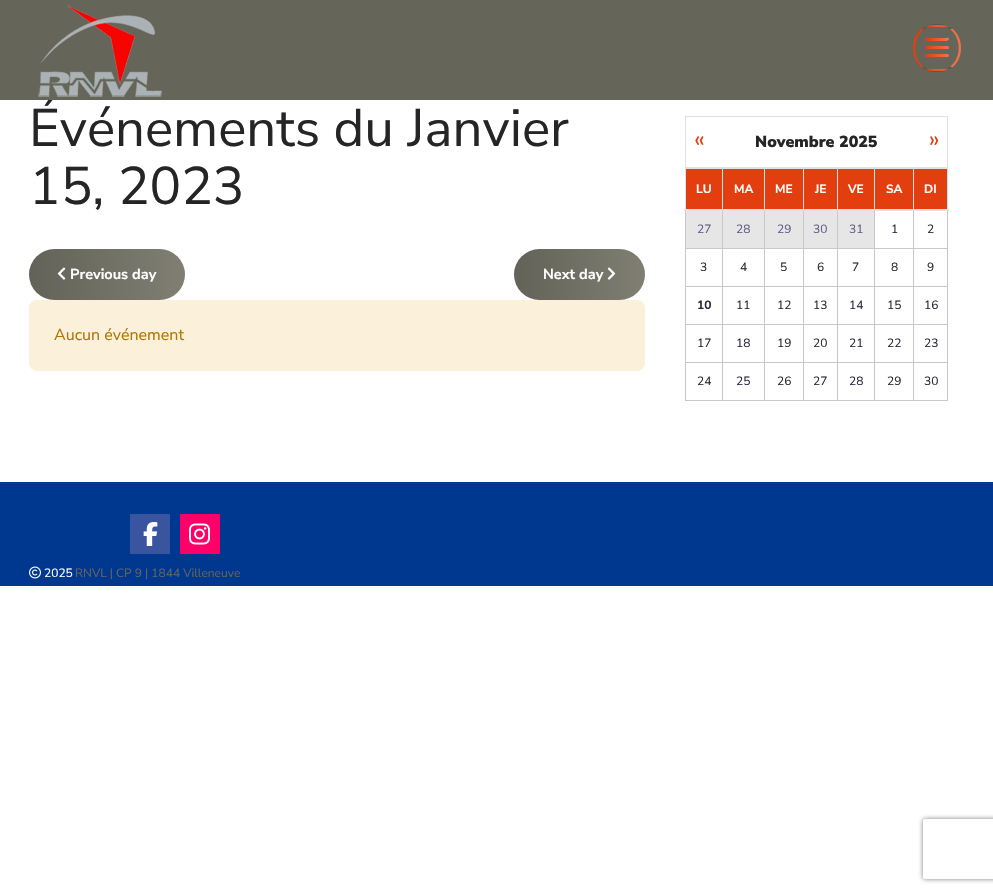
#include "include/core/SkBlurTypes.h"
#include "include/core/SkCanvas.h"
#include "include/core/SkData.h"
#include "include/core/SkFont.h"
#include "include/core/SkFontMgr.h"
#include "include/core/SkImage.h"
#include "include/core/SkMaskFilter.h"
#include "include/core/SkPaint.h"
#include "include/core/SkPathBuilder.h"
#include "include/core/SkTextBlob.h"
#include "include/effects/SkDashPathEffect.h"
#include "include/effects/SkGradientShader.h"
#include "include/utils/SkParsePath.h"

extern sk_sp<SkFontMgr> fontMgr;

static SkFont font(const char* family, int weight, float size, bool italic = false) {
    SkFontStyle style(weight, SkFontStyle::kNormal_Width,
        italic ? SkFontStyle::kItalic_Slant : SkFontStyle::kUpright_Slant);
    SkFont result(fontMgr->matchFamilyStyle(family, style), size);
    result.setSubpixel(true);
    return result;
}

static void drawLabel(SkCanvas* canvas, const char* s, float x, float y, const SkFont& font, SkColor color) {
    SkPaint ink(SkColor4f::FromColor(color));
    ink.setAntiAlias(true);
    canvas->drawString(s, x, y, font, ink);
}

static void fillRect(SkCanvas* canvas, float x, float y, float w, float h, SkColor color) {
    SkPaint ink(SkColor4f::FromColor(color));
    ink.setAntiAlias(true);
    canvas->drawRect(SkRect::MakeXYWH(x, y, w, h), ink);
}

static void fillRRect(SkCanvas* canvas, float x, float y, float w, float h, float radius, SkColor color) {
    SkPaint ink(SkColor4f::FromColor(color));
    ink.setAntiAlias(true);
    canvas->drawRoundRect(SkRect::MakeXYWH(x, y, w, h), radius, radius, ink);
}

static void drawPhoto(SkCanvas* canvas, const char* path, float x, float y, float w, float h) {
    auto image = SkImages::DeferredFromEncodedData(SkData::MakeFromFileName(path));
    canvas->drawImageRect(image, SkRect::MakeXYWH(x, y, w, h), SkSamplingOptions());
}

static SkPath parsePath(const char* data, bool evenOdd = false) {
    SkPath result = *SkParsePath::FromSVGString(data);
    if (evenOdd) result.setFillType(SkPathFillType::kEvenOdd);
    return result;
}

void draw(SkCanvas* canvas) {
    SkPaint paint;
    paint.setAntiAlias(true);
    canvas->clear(0xFFFFFFFF);
    SkFont font1 = font("Nunito Sans", 400, 52.75f);
    drawLabel(canvas, "Événements du Janvier", 29, 146, font1, 0xFF252525);
    fillRect(canvas, 0, 0, 993, 100, 0xFF66655A);
    drawPhoto(canvas, "assets/img1.png", 38, 5, 124, 92);
    canvas->save();
    canvas->clipPath(parsePath("M937 24C950.5 24 961 34.5 961 48C961 61.5 950.5 72 937 72C923.5 72 913 61.5 913 48C913 34.5 923.5 24 937 24Z"), true);
    {
        const SkColor colors[] = {0xFFE33E10, 0xFFF2714D};
        const float stops[] = {0, 1};
        const SkPoint ends[] = {{915, 26}, {959, 26}};
        paint.setShader(SkGradientShader::MakeLinear(ends, colors, stops, 2, SkTileMode::kClamp));
        paint.setAlpha(255);
    }
    canvas->drawRect(SkRect::MakeXYWH(925, 25, 24, 2), paint);
    {
        const SkColor colors[] = {0xFFE33E10, 0xFFF2714D};
        const float stops[] = {0, 1};
        const SkPoint ends[] = {{915, 70}, {959, 70}};
        paint.setShader(SkGradientShader::MakeLinear(ends, colors, stops, 2, SkTileMode::kClamp));
        paint.setAlpha(255);
    }
    canvas->drawRect(SkRect::MakeXYWH(925, 69, 24, 2), paint);
    canvas->restore();
    paint.setShader(nullptr);
    paint.setColor(0x26000000);
    canvas->drawPath(parsePath("M937 24C931 24 926 26 922 28.5L923.5 29.5C931 23.5 943 23.5 950.5 29.5L952 28.5C948 26 943 24 937 24Z"), paint);
    paint.setColor(0xFFF2714D);
    canvas->drawPath(parsePath("M961 48C961 55.5 958 63 952 67.5L950.5 66.5C961.5 58 961.5 38 950.5 29.5L952 28.5C958 33 961 40.5 961 48Z"), paint);
    paint.setColor(0x26000000);
    canvas->drawPath(parsePath("M952 67.5C943.5 73.5 930.5 73.5 922 67.5L923.5 66.5C931 72.5 943 72.5 950.5 66.5Z"), paint);
    paint.setColor(0xFFE33E10);
    canvas->drawPath(parsePath("M913 48C913 40.5 916 33 922 28.5L923.5 29.5C912.5 38 912.5 58 923.5 66.5L922 67.5C916 63 913 55.5 913 48Z"), paint);
    {
        const SkColor colors[] = {0xFFE33E10, 0xFFF2714D};
        const float stops[] = {0, 1};
        const SkPoint ends[] = {{927, 39}, {947, 39}};
        paint.setShader(SkGradientShader::MakeLinear(ends, colors, stops, 2, SkTileMode::kClamp));
        paint.setAlpha(255);
    }
    canvas->drawRect(SkRect::MakeXYWH(927, 38, 20, 1), paint);
    {
        const SkColor colors[] = {0xFFE33E10, 0xFFF2714D};
        const float stops[] = {0, 1};
        const SkPoint ends[] = {{927, 40}, {947, 40}};
        paint.setShader(SkGradientShader::MakeLinear(ends, colors, stops, 2, SkTileMode::kClamp));
        paint.setAlpha(255);
    }
    canvas->drawRect(SkRect::MakeXYWH(927, 39, 20, 2), paint);
    paint.setShader(nullptr);
    paint.setColor(0xFFF2714D);
    canvas->drawPath(parsePath("M949 39.5C949 40 947.5 40.5 947 40.5V37.5C948.5 37.5 949 38 949 39.5Z"), paint);
    paint.setColor(0xFFE33E10);
    canvas->drawPath(parsePath("M926.5 37.5C924.5 37.5 924.5 40.5 927 40.5V37.5Z"), paint);
    {
        const SkColor colors[] = {0xFFF2714D, 0xFFE33E10};
        const float stops[] = {0, 1};
        const SkPoint ends[] = {{949, 47}, {925, 47}};
        paint.setShader(SkGradientShader::MakeLinear(ends, colors, stops, 2, SkTileMode::kClamp));
        paint.setAlpha(255);
    }
    canvas->drawRoundRect(SkRect::MakeXYWH(925, 46, 24, 3), 1.5f, 1.5f, paint);
    {
        const SkColor colors[] = {0xFFF2714D, 0xFFE33E10};
        const float stops[] = {0, 1};
        const SkPoint ends[] = {{949, 55}, {925, 55}};
        paint.setShader(SkGradientShader::MakeLinear(ends, colors, stops, 2, SkTileMode::kClamp));
        paint.setAlpha(255);
    }
    canvas->drawRoundRect(SkRect::MakeXYWH(925, 54, 24, 3), 1.5f, 1.5f, paint);
    drawLabel(canvas, "15, 2023", 29, 204, font1, 0xFF252525);
    {
        const SkColor colors[] = {0xFF636258, 0xFF8E8D7F};
        const float stops[] = {0, 1};
        const SkPoint ends[] = {{29, 275}, {263, 275}};
        paint.setShader(SkGradientShader::MakeLinear(ends, colors, stops, 2, SkTileMode::kClamp));
        paint.setAlpha(255);
    }
    canvas->drawRoundRect(SkRect::MakeXYWH(29, 249, 156, 51), 25.5f, 25.5f, paint);
    drawPhoto(canvas, "assets/img2.png", 57, 267, 9, 13);
    SkFont font2 = font("Nunito Sans", 700, 14.5f);
    drawLabel(canvas, "Previous day", 70, 279, font2, 0xFFFFFFFF);
    {
        const SkColor colors[] = {0xFF636258, 0xFF8E8D7F};
        const float stops[] = {0, 1};
        const SkPoint ends[] = {{514, 275}, {711, 275}};
        paint.setShader(SkGradientShader::MakeLinear(ends, colors, stops, 2, SkTileMode::kClamp));
        paint.setAlpha(255);
    }
    canvas->drawRoundRect(SkRect::MakeXYWH(514, 249, 131, 51), 25.5f, 25.5f, paint);
    drawLabel(canvas, "Next day", 543, 279, font2, 0xFFFFFFFF);
    drawPhoto(canvas, "assets/img3.png", 607, 267, 9, 13);
    fillRRect(canvas, 29, 300, 616, 71, 8, 0xFFFBF0D9);
    SkFont font3 = font("Nunito Sans", 400, 16);
    drawLabel(canvas, "Aucun événement", 54, 340, font3, 0xFFAE7600);
    fillRect(canvas, 685, 116, 263, 1, 0xFFE1E1E1);
    fillRect(canvas, 947, 116, 1, 52, 0xFFE1E1E1);
    fillRect(canvas, 685, 167, 263, 2, 0xFFE1E1E1);
    fillRect(canvas, 685, 116, 1, 52, 0xFFE1E1E1);
    SkFont font4 = font("Nunito Sans", 400, 24);
    drawLabel(canvas, "«", 694, 147, font4, 0xFFE33E10);
    SkFont font5 = font("Nunito Sans", 900, 16);
    drawLabel(canvas, "Novembre 2025", 755, 147, font5, 0xFF252525);
    drawLabel(canvas, "»", 929, 147, font4, 0xFFE33E10);
    fillRect(canvas, 686, 169, 36, 40, 0xFFE33E10);
    fillRect(canvas, 913, 248, 35, 1, 0xFFC8C8C8);
    fillRect(canvas, 913, 286, 35, 1, 0xFFC8C8C8);
    fillRect(canvas, 913, 324, 35, 1, 0xFFC8C8C8);
    fillRect(canvas, 913, 362, 35, 1, 0xFFC8C8C8);
    fillRect(canvas, 947, 362, 1, 39, 0xFFC8C8C8);
    fillRect(canvas, 913, 400, 35, 1, 0xFFC8C8C8);
    fillRect(canvas, 913, 362, 1, 39, 0xFFC8C8C8);
    fillRect(canvas, 874, 362, 40, 1, 0xFFC8C8C8);
    fillRect(canvas, 913, 324, 1, 39, 0xFFC8C8C8);
    fillRect(canvas, 874, 324, 40, 1, 0xFFC8C8C8);
    fillRect(canvas, 913, 286, 1, 39, 0xFFC8C8C8);
    fillRect(canvas, 874, 286, 40, 1, 0xFFC8C8C8);
    fillRect(canvas, 913, 248, 1, 39, 0xFFC8C8C8);
    fillRect(canvas, 874, 248, 40, 1, 0xFFC8C8C8);
    fillRect(canvas, 874, 400, 40, 1, 0xFFC8C8C8);
    fillRect(canvas, 874, 362, 1, 39, 0xFFC8C8C8);
    fillRect(canvas, 837, 362, 38, 1, 0xFFC8C8C8);
    fillRect(canvas, 874, 324, 1, 39, 0xFFC8C8C8);
    fillRect(canvas, 837, 324, 38, 1, 0xFFC8C8C8);
    fillRect(canvas, 874, 286, 1, 39, 0xFFC8C8C8);
    fillRect(canvas, 837, 286, 38, 1, 0xFFC8C8C8);
    fillRect(canvas, 874, 248, 1, 39, 0xFFC8C8C8);
    fillRect(canvas, 837, 248, 38, 1, 0xFFC8C8C8);
    fillRect(canvas, 837, 400, 38, 1, 0xFFC8C8C8);
    fillRect(canvas, 837, 362, 1, 39, 0xFFC8C8C8);
    fillRect(canvas, 803, 362, 35, 1, 0xFFC8C8C8);
    fillRect(canvas, 837, 324, 1, 39, 0xFFC8C8C8);
    fillRect(canvas, 803, 324, 35, 1, 0xFFC8C8C8);
    fillRect(canvas, 837, 286, 1, 39, 0xFFC8C8C8);
    fillRect(canvas, 803, 286, 35, 1, 0xFFC8C8C8);
    fillRect(canvas, 837, 248, 1, 39, 0xFFC8C8C8);
    fillRect(canvas, 803, 248, 35, 1, 0xFFC8C8C8);
    fillRect(canvas, 803, 400, 35, 1, 0xFFC8C8C8);
    fillRect(canvas, 803, 362, 1, 39, 0xFFC8C8C8);
    fillRect(canvas, 764, 362, 40, 1, 0xFFC8C8C8);
    fillRect(canvas, 803, 324, 1, 39, 0xFFC8C8C8);
    fillRect(canvas, 764, 324, 40, 1, 0xFFC8C8C8);
    fillRect(canvas, 803, 286, 1, 39, 0xFFC8C8C8);
    fillRect(canvas, 764, 286, 40, 1, 0xFFC8C8C8);
    fillRect(canvas, 803, 248, 1, 39, 0xFFC8C8C8);
    fillRect(canvas, 764, 248, 40, 1, 0xFFC8C8C8);
    fillRect(canvas, 764, 400, 40, 1, 0xFFC8C8C8);
    fillRect(canvas, 764, 362, 1, 39, 0xFFC8C8C8);
    fillRect(canvas, 722, 362, 43, 1, 0xFFC8C8C8);
    fillRect(canvas, 764, 324, 1, 39, 0xFFC8C8C8);
    fillRect(canvas, 722, 324, 43, 1, 0xFFC8C8C8);
    fillRect(canvas, 764, 286, 1, 39, 0xFFC8C8C8);
    fillRect(canvas, 722, 286, 43, 1, 0xFFC8C8C8);
    fillRect(canvas, 764, 248, 1, 39, 0xFFC8C8C8);
    fillRect(canvas, 722, 248, 43, 1, 0xFFC8C8C8);
    fillRect(canvas, 722, 400, 43, 1, 0xFFC8C8C8);
    fillRect(canvas, 722, 362, 1, 39, 0xFFC8C8C8);
    fillRect(canvas, 685, 362, 38, 1, 0xFFC8C8C8);
    fillRect(canvas, 722, 324, 1, 39, 0xFFC8C8C8);
    fillRect(canvas, 685, 324, 38, 1, 0xFFC8C8C8);
    fillRect(canvas, 722, 286, 1, 39, 0xFFC8C8C8);
    fillRect(canvas, 685, 286, 38, 1, 0xFFC8C8C8);
    fillRect(canvas, 722, 248, 1, 39, 0xFFC8C8C8);
    fillRect(canvas, 685, 248, 38, 1, 0xFFC8C8C8);
    fillRect(canvas, 685, 400, 38, 1, 0xFFC8C8C8);
    fillRect(canvas, 685, 362, 1, 39, 0xFFC8C8C8);
    fillRect(canvas, 685, 324, 1, 39, 0xFFC8C8C8);
    fillRect(canvas, 685, 286, 1, 39, 0xFFC8C8C8);
    fillRect(canvas, 685, 210, 1, 77, 0xFFC8C8C8);
    fillRect(canvas, 685, 168, 1, 43, 0xFFE1E1E1);
    SkFont font6 = font("Nunito Sans", 700, 12);
    drawLabel(canvas, "LU", 696, 193, font6, 0xFFFFFFFF);
    fillRect(canvas, 723, 169, 41, 40, 0xFFE33E10);
    fillRect(canvas, 722, 210, 1, 39, 0xFFC8C8C8);
    fillRect(canvas, 722, 168, 1, 43, 0xFFE1E1E1);
    drawLabel(canvas, "MA", 734, 193, font6, 0xFFFFFFFF);
    fillRect(canvas, 765, 169, 38, 40, 0xFFE33E10);
    fillRect(canvas, 764, 210, 1, 39, 0xFFC8C8C8);
    fillRect(canvas, 764, 168, 1, 43, 0xFFE1E1E1);
    drawLabel(canvas, "ME", 775, 193, font6, 0xFFFFFFFF);
    fillRect(canvas, 804, 169, 33, 40, 0xFFE33E10);
    fillRect(canvas, 803, 210, 1, 39, 0xFFC8C8C8);
    fillRect(canvas, 803, 168, 1, 43, 0xFFE1E1E1);
    drawLabel(canvas, "JE", 815, 193, font6, 0xFFFFFFFF);
    fillRect(canvas, 838, 169, 36, 40, 0xFFE33E10);
    fillRect(canvas, 837, 210, 1, 39, 0xFFC8C8C8);
    fillRect(canvas, 837, 168, 1, 43, 0xFFE1E1E1);
    drawLabel(canvas, "VE", 848, 193, font6, 0xFFFFFFFF);
    fillRect(canvas, 875, 169, 38, 40, 0xFFE33E10);
    fillRect(canvas, 874, 210, 1, 39, 0xFFC8C8C8);
    fillRect(canvas, 874, 168, 1, 43, 0xFFE1E1E1);
    drawLabel(canvas, "SA", 886, 193, font6, 0xFFFFFFFF);
    fillRect(canvas, 914, 169, 33, 40, 0xFFE33E10);
    fillRect(canvas, 947, 324, 1, 39, 0xFFC8C8C8);
    fillRect(canvas, 947, 286, 1, 39, 0xFFC8C8C8);
    fillRect(canvas, 947, 210, 1, 77, 0xFFC8C8C8);
    fillRect(canvas, 947, 168, 1, 43, 0xFFE1E1E1);
    fillRect(canvas, 913, 210, 1, 39, 0xFFC8C8C8);
    fillRect(canvas, 913, 168, 1, 43, 0xFFE1E1E1);
    fillRect(canvas, 684, 209, 265, 2, 0xFFE1E1E1);
    drawLabel(canvas, "DI", 924, 193, font6, 0xFFFFFFFF);
    fillRect(canvas, 686, 211, 36, 37, 0xFFE6E6E6);
    SkFont font7 = font("Nunito Sans", 400, 12);
    drawLabel(canvas, "27", 697, 233, font7, 0xFF625D82);
    fillRect(canvas, 723, 211, 41, 37, 0xFFE6E6E6);
    drawLabel(canvas, "28", 736, 233, font7, 0xFF625D82);
    fillRect(canvas, 765, 211, 38, 37, 0xFFE6E6E6);
    drawLabel(canvas, "29", 777, 233, font7, 0xFF625D82);
    fillRect(canvas, 804, 211, 33, 37, 0xFFE6E6E6);
    drawLabel(canvas, "30", 813, 233, font7, 0xFF625D82);
    fillRect(canvas, 838, 211, 36, 37, 0xFFE6E6E6);
    drawLabel(canvas, "31", 849, 233, font7, 0xFF625D82);
    drawLabel(canvas, "1", 891, 233, font7, 0xFF2A2838);
    drawLabel(canvas, "2", 927, 233, font7, 0xFF2A2838);
    drawLabel(canvas, "3", 700, 271, font7, 0xFF2A2838);
    drawLabel(canvas, "4", 740, 271, font7, 0xFF2A2838);
    drawLabel(canvas, "5", 780, 271, font7, 0xFF2A2838);
    drawLabel(canvas, "6", 817, 271, font7, 0xFF2A2838);
    drawLabel(canvas, "7", 852, 271, font7, 0xFF2A2838);
    drawLabel(canvas, "8", 891, 271, font7, 0xFF2A2838);
    drawLabel(canvas, "9", 927, 271, font7, 0xFF2A2838);
    drawLabel(canvas, "10", 697, 309, font6, 0xFF2A2838);
    drawLabel(canvas, "11", 736, 309, font7, 0xFF2A2838);
    drawLabel(canvas, "12", 777, 309, font7, 0xFF2A2838);
    drawLabel(canvas, "13", 813, 309, font7, 0xFF2A2838);
    drawLabel(canvas, "14", 849, 309, font7, 0xFF2A2838);
    drawLabel(canvas, "15", 887, 309, font7, 0xFF2A2838);
    drawLabel(canvas, "16", 924, 309, font7, 0xFF2A2838);
    drawLabel(canvas, "17", 697, 347, font7, 0xFF2A2838);
    drawLabel(canvas, "18", 736, 347, font7, 0xFF2A2838);
    drawLabel(canvas, "19", 777, 347, font7, 0xFF2A2838);
    drawLabel(canvas, "20", 813, 347, font7, 0xFF2A2838);
    drawLabel(canvas, "21", 849, 347, font7, 0xFF2A2838);
    drawLabel(canvas, "22", 887, 347, font7, 0xFF2A2838);
    drawLabel(canvas, "23", 924, 347, font7, 0xFF2A2838);
    drawLabel(canvas, "24", 697, 385, font7, 0xFF2A2838);
    drawLabel(canvas, "25", 736, 385, font7, 0xFF2A2838);
    drawLabel(canvas, "26", 777, 385, font7, 0xFF2A2838);
    drawLabel(canvas, "27", 813, 385, font7, 0xFF2A2838);
    drawLabel(canvas, "28", 849, 385, font7, 0xFF2A2838);
    drawLabel(canvas, "29", 887, 385, font7, 0xFF2A2838);
    drawLabel(canvas, "30", 924, 385, font7, 0xFF2A2838);
    fillRect(canvas, 0, 482, 993, 104, 0xFF00378F);
    fillRect(canvas, 130, 514, 40, 40, 0xFF3A559F);
    drawPhoto(canvas, "assets/img4.png", 143, 522, 15, 24);
    fillRect(canvas, 180, 514, 40, 40, 0xFFFF0068);
    drawPhoto(canvas, "assets/img5.png", 189, 523, 21, 22);
    drawPhoto(canvas, "assets/img6.png", 29, 566, 12, 13);
    drawLabel(canvas, "2025", 44, 577, font7, 0xFFFFFFFF);
    drawLabel(canvas, "RNVL | CP 9 | 1844 Villeneuve", 75, 577, font7, 0xFF66655A);
    canvas->save();
    canvas->clipPath(parsePath("M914 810H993V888H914ZM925 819H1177C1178 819 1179 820 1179 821V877C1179 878 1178 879 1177 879H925C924 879 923 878 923 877V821C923 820 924 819 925 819Z", true), true);
    paint.setShader(nullptr);
    paint.setColor(0xFF808080);
    paint.setMaskFilter(SkMaskFilter::MakeBlur(kNormal_SkBlurStyle, 2.5f));
    canvas->drawRoundRect(SkRect::MakeXYWH(923, 819, 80, 60), 2, 2, paint);
    paint.setMaskFilter(nullptr);
    canvas->restore();
}
